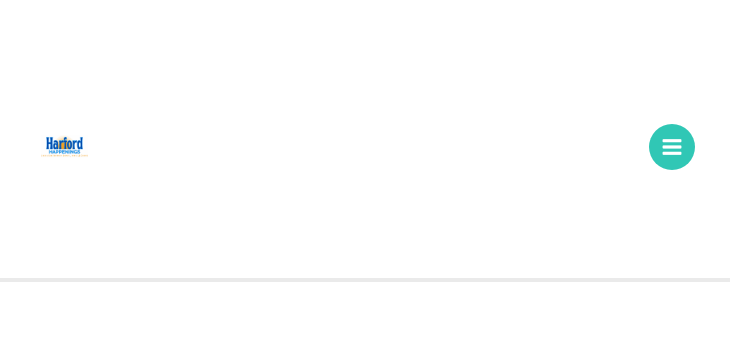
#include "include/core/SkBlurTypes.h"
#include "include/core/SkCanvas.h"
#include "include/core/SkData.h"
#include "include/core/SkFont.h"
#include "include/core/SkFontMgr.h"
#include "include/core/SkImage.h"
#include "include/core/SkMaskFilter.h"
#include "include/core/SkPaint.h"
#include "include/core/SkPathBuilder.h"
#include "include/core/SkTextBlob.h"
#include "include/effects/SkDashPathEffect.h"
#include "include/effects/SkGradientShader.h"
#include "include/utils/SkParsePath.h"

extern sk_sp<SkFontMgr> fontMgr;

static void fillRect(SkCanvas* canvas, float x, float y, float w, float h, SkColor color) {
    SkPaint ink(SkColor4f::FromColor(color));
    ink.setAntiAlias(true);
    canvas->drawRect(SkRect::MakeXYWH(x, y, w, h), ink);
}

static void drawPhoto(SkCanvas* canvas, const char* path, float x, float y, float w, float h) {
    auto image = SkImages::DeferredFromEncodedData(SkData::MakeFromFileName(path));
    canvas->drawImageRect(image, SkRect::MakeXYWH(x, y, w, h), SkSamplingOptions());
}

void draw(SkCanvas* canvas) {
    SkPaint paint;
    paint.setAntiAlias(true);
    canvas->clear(0xFFFFFFFF);
    fillRect(canvas, 0, 278, 730, 4, 0xFFEAEAEA);
    drawPhoto(canvas, "assets/img1.png", 41, 135, 47, 23);
    paint.setColor(0xFF30C7B5);
    canvas->drawCircle(672, 147, 23, paint);
    drawPhoto(canvas, "assets/img2.png", 662, 139, 20, 16);
}
